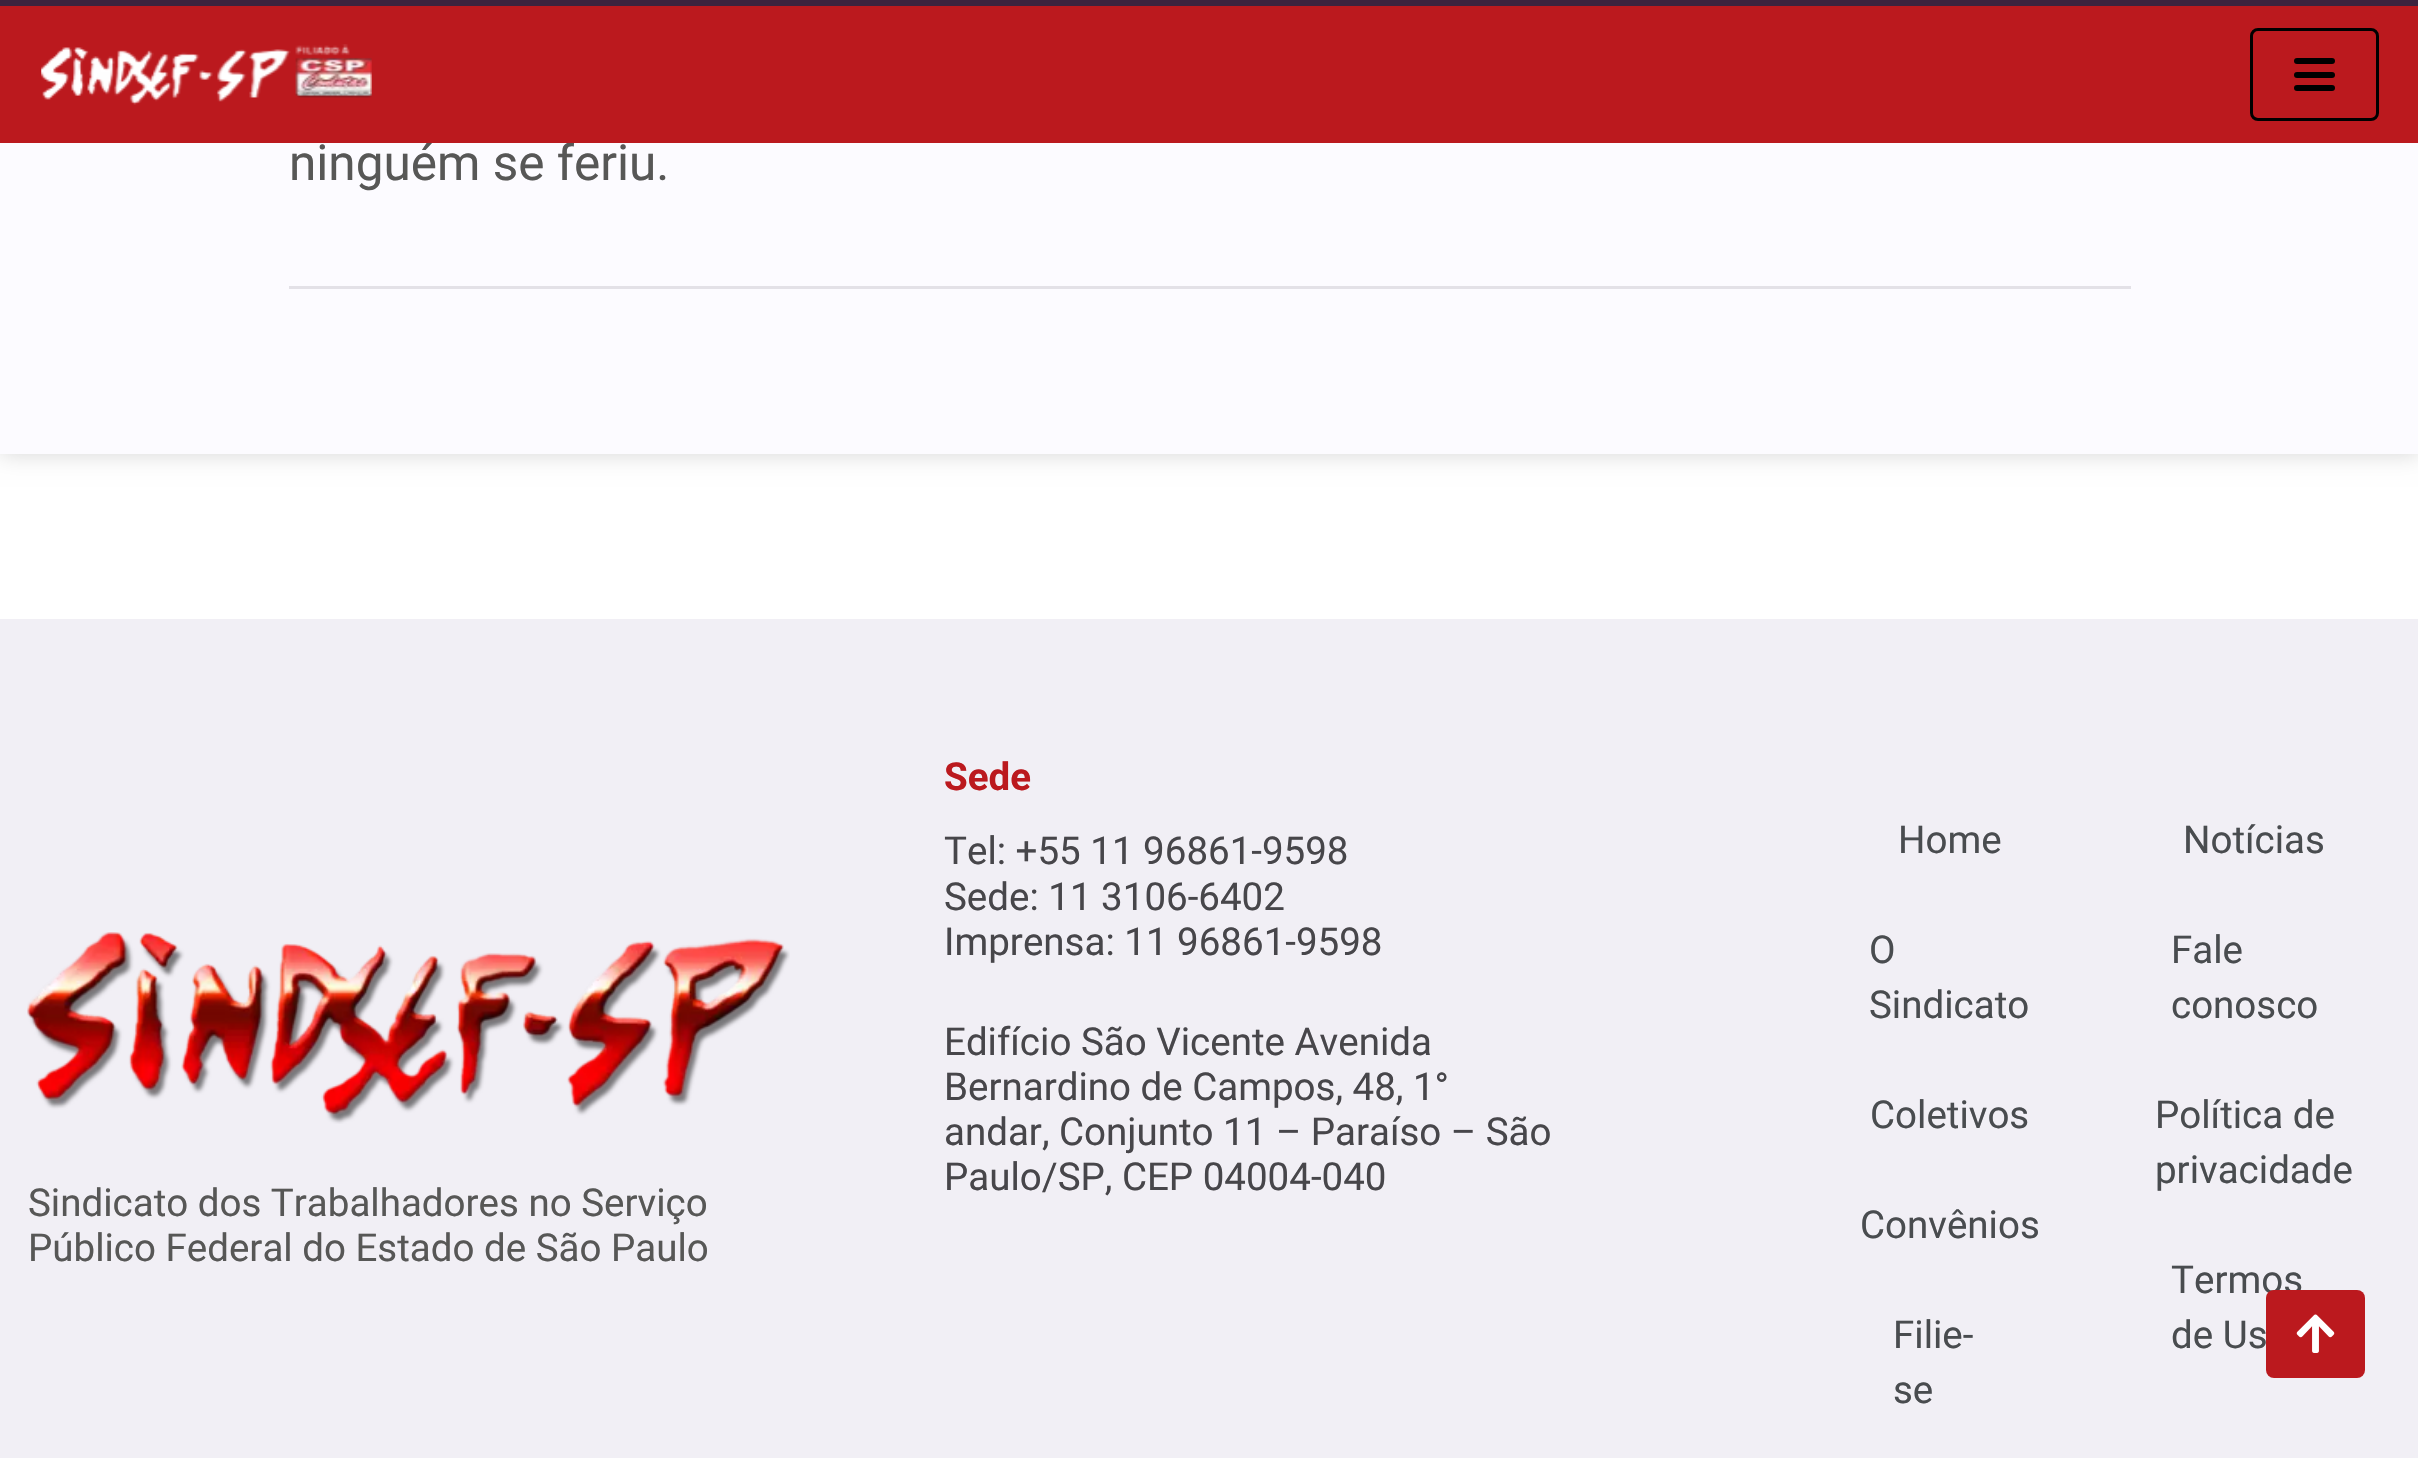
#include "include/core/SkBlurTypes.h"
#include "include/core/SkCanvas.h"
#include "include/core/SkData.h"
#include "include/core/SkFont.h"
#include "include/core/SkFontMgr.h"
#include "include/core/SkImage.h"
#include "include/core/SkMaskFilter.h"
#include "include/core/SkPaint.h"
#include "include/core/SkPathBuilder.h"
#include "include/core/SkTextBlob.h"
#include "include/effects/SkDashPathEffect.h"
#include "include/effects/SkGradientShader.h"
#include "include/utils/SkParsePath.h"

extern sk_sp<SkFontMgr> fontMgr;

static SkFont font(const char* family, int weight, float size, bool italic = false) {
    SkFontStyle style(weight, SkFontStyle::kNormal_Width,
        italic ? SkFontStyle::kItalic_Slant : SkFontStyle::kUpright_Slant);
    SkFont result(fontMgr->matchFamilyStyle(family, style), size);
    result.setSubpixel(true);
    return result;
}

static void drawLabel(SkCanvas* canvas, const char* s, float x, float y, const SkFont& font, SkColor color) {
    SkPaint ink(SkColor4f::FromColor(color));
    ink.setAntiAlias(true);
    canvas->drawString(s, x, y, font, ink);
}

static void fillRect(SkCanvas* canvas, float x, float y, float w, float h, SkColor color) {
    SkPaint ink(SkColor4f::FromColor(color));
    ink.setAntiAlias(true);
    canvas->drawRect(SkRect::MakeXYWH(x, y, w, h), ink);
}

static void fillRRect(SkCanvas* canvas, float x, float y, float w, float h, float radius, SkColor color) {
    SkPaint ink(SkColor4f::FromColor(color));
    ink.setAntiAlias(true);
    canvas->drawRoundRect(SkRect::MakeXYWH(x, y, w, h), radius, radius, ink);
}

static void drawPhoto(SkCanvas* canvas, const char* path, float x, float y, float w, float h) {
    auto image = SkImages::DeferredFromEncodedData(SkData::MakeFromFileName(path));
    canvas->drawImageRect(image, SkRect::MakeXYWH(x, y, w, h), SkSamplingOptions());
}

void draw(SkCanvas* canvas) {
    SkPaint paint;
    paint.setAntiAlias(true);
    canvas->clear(0xFFFFFFFF);
    paint.setColor(0x29000000);
    paint.setMaskFilter(SkMaskFilter::MakeBlur(kNormal_SkBlurStyle, 11));
    canvas->drawRect(SkRect::MakeXYWH(0, -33, 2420, 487), paint);
    paint.setMaskFilter(nullptr);
    fillRect(canvas, 0, 143, 2418, 311, 0xFFFCFBFF);
    SkFont font1 = font("Roboto", 400, 49.5f);
    drawLabel(canvas, "ninguém se feriu.", 289, 180, font1, 0xFF575756);
    fillRect(canvas, 0, 6, 2418, 137, 0xFFBB191E);
    fillRect(canvas, 0, 0, 2418, 6, 0xFF3C233E);
    drawPhoto(canvas, "assets/img1.png", 41, 44, 331, 61);
    paint.setStroke(true);
    paint.setStrokeWidth(3);
    paint.setColor(0xFF000000);
    canvas->drawRoundRect(SkRect::MakeXYWH(2251.5f, 29.5f, 126, 90), 6.5f, 6.5f, paint);
    fillRRect(canvas, 2294, 58, 41, 6, 3, 0xFF000000);
    fillRRect(canvas, 2294, 72, 41, 6, 3, 0xFF000000);
    fillRRect(canvas, 2294, 85, 41, 6, 3, 0xFF000000);
    fillRect(canvas, 289, 286, 1842, 3, 0xFFE3E1E7);
    fillRect(canvas, 0, 619, 2418, 839, 0xFFF1EFF5);
    drawPhoto(canvas, "assets/img2.png", 27, 932, 763, 192);
    SkFont font2 = font("Roboto", 400, 38.5f);
    drawLabel(canvas, "Sindicato dos Trabalhadores no Serviço", 28, 1216, font2, 0xFF575756);
    drawLabel(canvas, "Público Federal do Estado de São Paulo", 28, 1261, font2, 0xFF575756);
    SkFont font3 = font("Roboto", 700, 38.5f);
    drawLabel(canvas, "Sede", 944, 790, font3, 0xFFBB191E);
    drawLabel(canvas, "Tel: +55 11 96861-9598", 944, 864, font2, 0xFF47464A);
    drawLabel(canvas, "Sede: 11 3106-6402", 944, 910, font2, 0xFF47464A);
    drawLabel(canvas, "Imprensa: 11 96861-9598", 944, 955, font2, 0xFF47464A);
    drawLabel(canvas, "Edifício São Vicente Avenida", 944, 1055, font2, 0xFF47464A);
    drawLabel(canvas, "Bernardino de Campos, 48, 1°", 944, 1100, font2, 0xFF47464A);
    drawLabel(canvas, "andar, Conjunto 11 – Paraíso – São", 944, 1145, font2, 0xFF47464A);
    drawLabel(canvas, "Paulo/SP, CEP 04004-040", 944, 1190, font2, 0xFF47464A);
    drawLabel(canvas, "Home", 1898, 853, font2, 0xFF494C4F);
    drawLabel(canvas, "O", 1869, 963, font2, 0xFF494C4F);
    drawLabel(canvas, "Sindicato", 1869, 1018, font2, 0xFF494C4F);
    drawLabel(canvas, "Coletivos", 1870, 1128, font2, 0xFF494C4F);
    drawLabel(canvas, "Convênios", 1860, 1238, font2, 0xFF494C4F);
    drawLabel(canvas, "Filie-", 1893, 1348, font2, 0xFF494C4F);
    drawLabel(canvas, "se", 1893, 1403, font2, 0xFF494C4F);
    drawLabel(canvas, "Notícias", 2183, 853, font2, 0xFF494C4F);
    drawLabel(canvas, "Fale", 2171, 963, font2, 0xFF494C4F);
    drawLabel(canvas, "conosco", 2171, 1018, font2, 0xFF494C4F);
    drawLabel(canvas, "Política de", 2155, 1128, font2, 0xFF494C4F);
    drawLabel(canvas, "privacidade", 2155, 1183, font2, 0xFF494C4F);
    drawLabel(canvas, "Termos", 2171, 1293, font2, 0xFF494C4F);
    drawLabel(canvas, "de Us", 2171, 1348, font2, 0xFF494C4F);
    fillRRect(canvas, 2266, 1290, 99, 88, 8, 0xFFBB191E);
    drawPhoto(canvas, "assets/img3.png", 2296, 1314, 39, 39);
}
